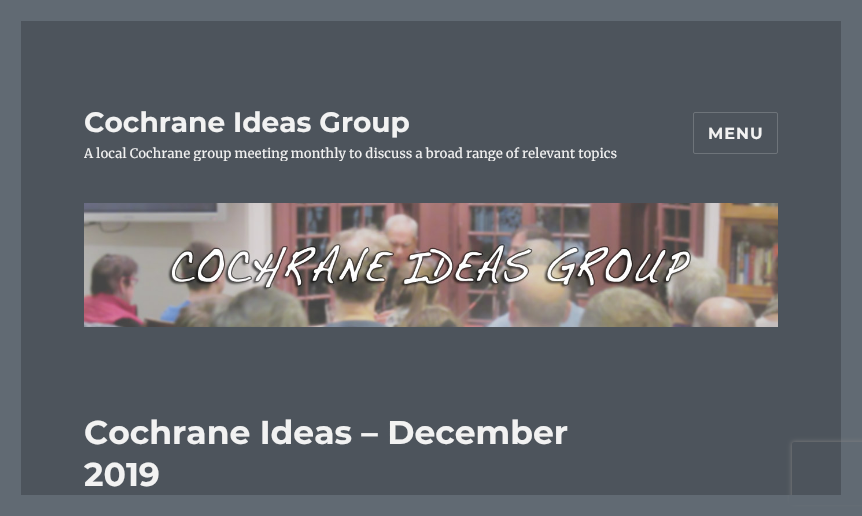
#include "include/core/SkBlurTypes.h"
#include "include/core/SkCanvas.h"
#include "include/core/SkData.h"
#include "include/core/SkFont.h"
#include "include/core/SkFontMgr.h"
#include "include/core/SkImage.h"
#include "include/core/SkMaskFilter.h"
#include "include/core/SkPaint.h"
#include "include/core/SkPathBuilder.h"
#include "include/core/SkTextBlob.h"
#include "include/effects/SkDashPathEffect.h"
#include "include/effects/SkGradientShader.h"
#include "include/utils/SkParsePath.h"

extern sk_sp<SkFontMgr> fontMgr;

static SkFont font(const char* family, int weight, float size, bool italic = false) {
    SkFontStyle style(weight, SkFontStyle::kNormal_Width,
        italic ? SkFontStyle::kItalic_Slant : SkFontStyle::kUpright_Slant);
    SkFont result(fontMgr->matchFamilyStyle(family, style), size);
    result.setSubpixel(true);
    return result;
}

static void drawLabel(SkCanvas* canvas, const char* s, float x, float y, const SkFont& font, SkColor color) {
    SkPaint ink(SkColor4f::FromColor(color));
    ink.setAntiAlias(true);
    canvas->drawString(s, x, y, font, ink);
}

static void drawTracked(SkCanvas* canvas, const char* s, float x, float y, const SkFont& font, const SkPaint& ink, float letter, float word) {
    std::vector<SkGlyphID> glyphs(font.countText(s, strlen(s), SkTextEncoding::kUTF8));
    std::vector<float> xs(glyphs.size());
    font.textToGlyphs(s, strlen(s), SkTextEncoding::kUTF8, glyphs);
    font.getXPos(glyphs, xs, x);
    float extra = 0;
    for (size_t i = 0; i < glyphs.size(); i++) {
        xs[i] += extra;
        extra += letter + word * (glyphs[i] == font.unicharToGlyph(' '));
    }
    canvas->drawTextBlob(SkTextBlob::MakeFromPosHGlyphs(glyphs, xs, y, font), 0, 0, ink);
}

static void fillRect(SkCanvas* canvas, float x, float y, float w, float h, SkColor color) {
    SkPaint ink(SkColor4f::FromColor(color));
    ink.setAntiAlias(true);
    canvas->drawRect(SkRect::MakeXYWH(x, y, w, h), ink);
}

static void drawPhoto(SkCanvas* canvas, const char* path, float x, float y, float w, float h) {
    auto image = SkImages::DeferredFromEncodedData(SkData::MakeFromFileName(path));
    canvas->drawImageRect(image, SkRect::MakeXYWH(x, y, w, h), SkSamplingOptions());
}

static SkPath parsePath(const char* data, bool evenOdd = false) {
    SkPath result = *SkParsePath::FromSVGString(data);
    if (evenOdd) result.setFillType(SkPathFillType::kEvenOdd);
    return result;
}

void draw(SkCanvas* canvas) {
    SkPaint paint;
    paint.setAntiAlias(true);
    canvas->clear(0xFF616A73);
    fillRect(canvas, 21, 21, 820, 474, 0xFF4D545C);
    SkFont font1 = font("Montserrat", 100, 28);
    drawLabel(canvas, "Cochrane Ideas Group", 84, 132, font1, 0xFFF2F2F2);
    canvas->save();
    canvas->clipRect(SkRect::MakeXYWH(84, 105, 533, 56));
    SkFont font2 = font("Merriweather", 400, 13);
    drawLabel(canvas, "A local Cochrane group meeting monthly to discuss a broad range of relevant topics", 84, 158, font2, 0xFFF2F2F2);
    canvas->restore();
    paint.setStroke(true);
    paint.setStrokeWidth(1);
    paint.setColor(0xFF6E747A);
    canvas->drawRoundRect(SkRect::MakeXYWH(693.5f, 112.5f, 84, 41), 1.5f, 1.5f, paint);
    SkFont font3 = font("Montserrat", 100, 16);
    paint.setStroke(false);
    paint.setColor(0xFFF2F2F2);
    drawTracked(canvas, "MENU", 708, 139, font3, paint, 1, 0);
    drawPhoto(canvas, "assets/img1.png", 84, 203, 694, 124);
    SkFont font4 = font("Montserrat", 100, 33);
    drawLabel(canvas, "Cochrane Ideas – December", 84, 444, font4, 0xFFF2F2F2);
    drawLabel(canvas, "2019", 84, 486, font4, 0xFFF2F2F2);
    canvas->save();
    canvas->clipPath(parsePath("M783 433H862V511H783ZM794 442H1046C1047 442 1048 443 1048 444V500C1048 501 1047 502 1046 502H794C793 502 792 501 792 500V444C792 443 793 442 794 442Z", true), true);
    paint.setColor(0xFF808080);
    paint.setMaskFilter(SkMaskFilter::MakeBlur(kNormal_SkBlurStyle, 2.5f));
    canvas->drawRoundRect(SkRect::MakeXYWH(792, 442, 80, 60), 2, 2, paint);
    paint.setMaskFilter(nullptr);
    canvas->restore();
    fillRect(canvas, 789, 495, 73, 10, 0xFF616A73);
}
